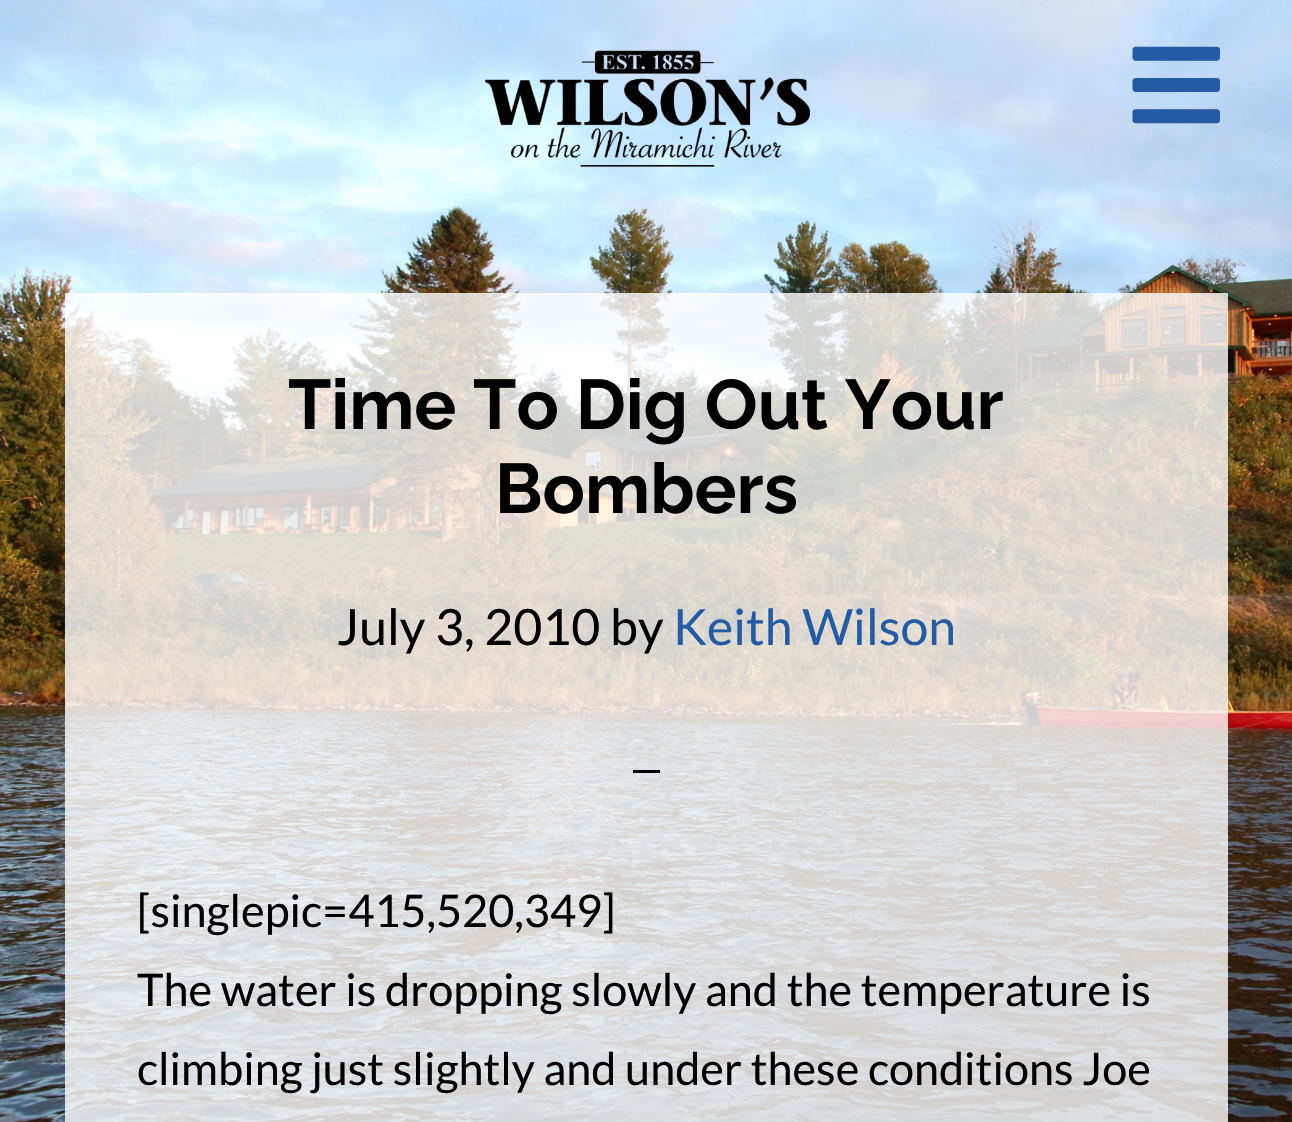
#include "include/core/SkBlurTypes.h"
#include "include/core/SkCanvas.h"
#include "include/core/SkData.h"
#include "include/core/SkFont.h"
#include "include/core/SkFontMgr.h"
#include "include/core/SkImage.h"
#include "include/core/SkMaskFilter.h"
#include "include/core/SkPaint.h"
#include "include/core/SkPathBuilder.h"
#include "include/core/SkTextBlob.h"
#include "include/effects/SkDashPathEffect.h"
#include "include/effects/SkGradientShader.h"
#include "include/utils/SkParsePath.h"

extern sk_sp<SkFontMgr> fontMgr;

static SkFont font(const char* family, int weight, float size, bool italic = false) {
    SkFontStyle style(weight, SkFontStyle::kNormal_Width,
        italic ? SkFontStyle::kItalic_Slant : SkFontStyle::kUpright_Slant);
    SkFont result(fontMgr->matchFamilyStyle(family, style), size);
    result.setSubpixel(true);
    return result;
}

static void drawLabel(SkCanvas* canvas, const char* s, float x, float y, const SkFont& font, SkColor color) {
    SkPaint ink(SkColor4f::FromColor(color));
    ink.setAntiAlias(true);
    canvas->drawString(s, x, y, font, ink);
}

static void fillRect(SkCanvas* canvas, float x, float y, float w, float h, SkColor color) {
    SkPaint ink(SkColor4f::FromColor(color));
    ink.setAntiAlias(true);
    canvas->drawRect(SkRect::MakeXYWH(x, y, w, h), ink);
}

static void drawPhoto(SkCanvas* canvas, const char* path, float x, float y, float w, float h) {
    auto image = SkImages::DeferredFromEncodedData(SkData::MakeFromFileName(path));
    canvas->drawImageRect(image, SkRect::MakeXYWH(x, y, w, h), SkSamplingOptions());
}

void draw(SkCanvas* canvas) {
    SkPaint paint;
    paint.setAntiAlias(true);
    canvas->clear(0xFFFFFFFF);
    drawPhoto(canvas, "assets/img1.png", 0, 0, 1292, 1122);
    drawPhoto(canvas, "assets/img2.png", 485, 50, 325, 117);
    drawPhoto(canvas, "assets/img3.png", 1132, 46, 88, 78);
    fillRect(canvas, 65, 293, 1163, 829, 0xCCFFFFFF);
    SkFont font1 = font("Raleway", 100, 70);
    drawLabel(canvas, "Time To Dig Out Your", 288, 429, font1, 0xFF000000);
    drawLabel(canvas, "Bombers", 495, 513, font1, 0xFF000000);
    SkFont font2 = font("Lato", 400, 50);
    drawLabel(canvas, "July 3, 2010 by", 337, 645, font2, 0xFF000000);
    drawLabel(canvas, "Keith Wilson", 673, 645, font2, 0xFF245BA5);
    fillRect(canvas, 633, 770, 27, 3, 0xFF000000);
    SkFont font3 = font("Lato", 400, 45);
    drawLabel(canvas, "[singlepic=415,520,349]", 137, 927, font3, 0xFF000000);
    drawLabel(canvas, "The water is dropping slowly and the temperature is", 137, 1006, font3, 0xFF000000);
    drawLabel(canvas, "climbing just slightly and under these conditions Joe", 137, 1085, font3, 0xFF000000);
}
